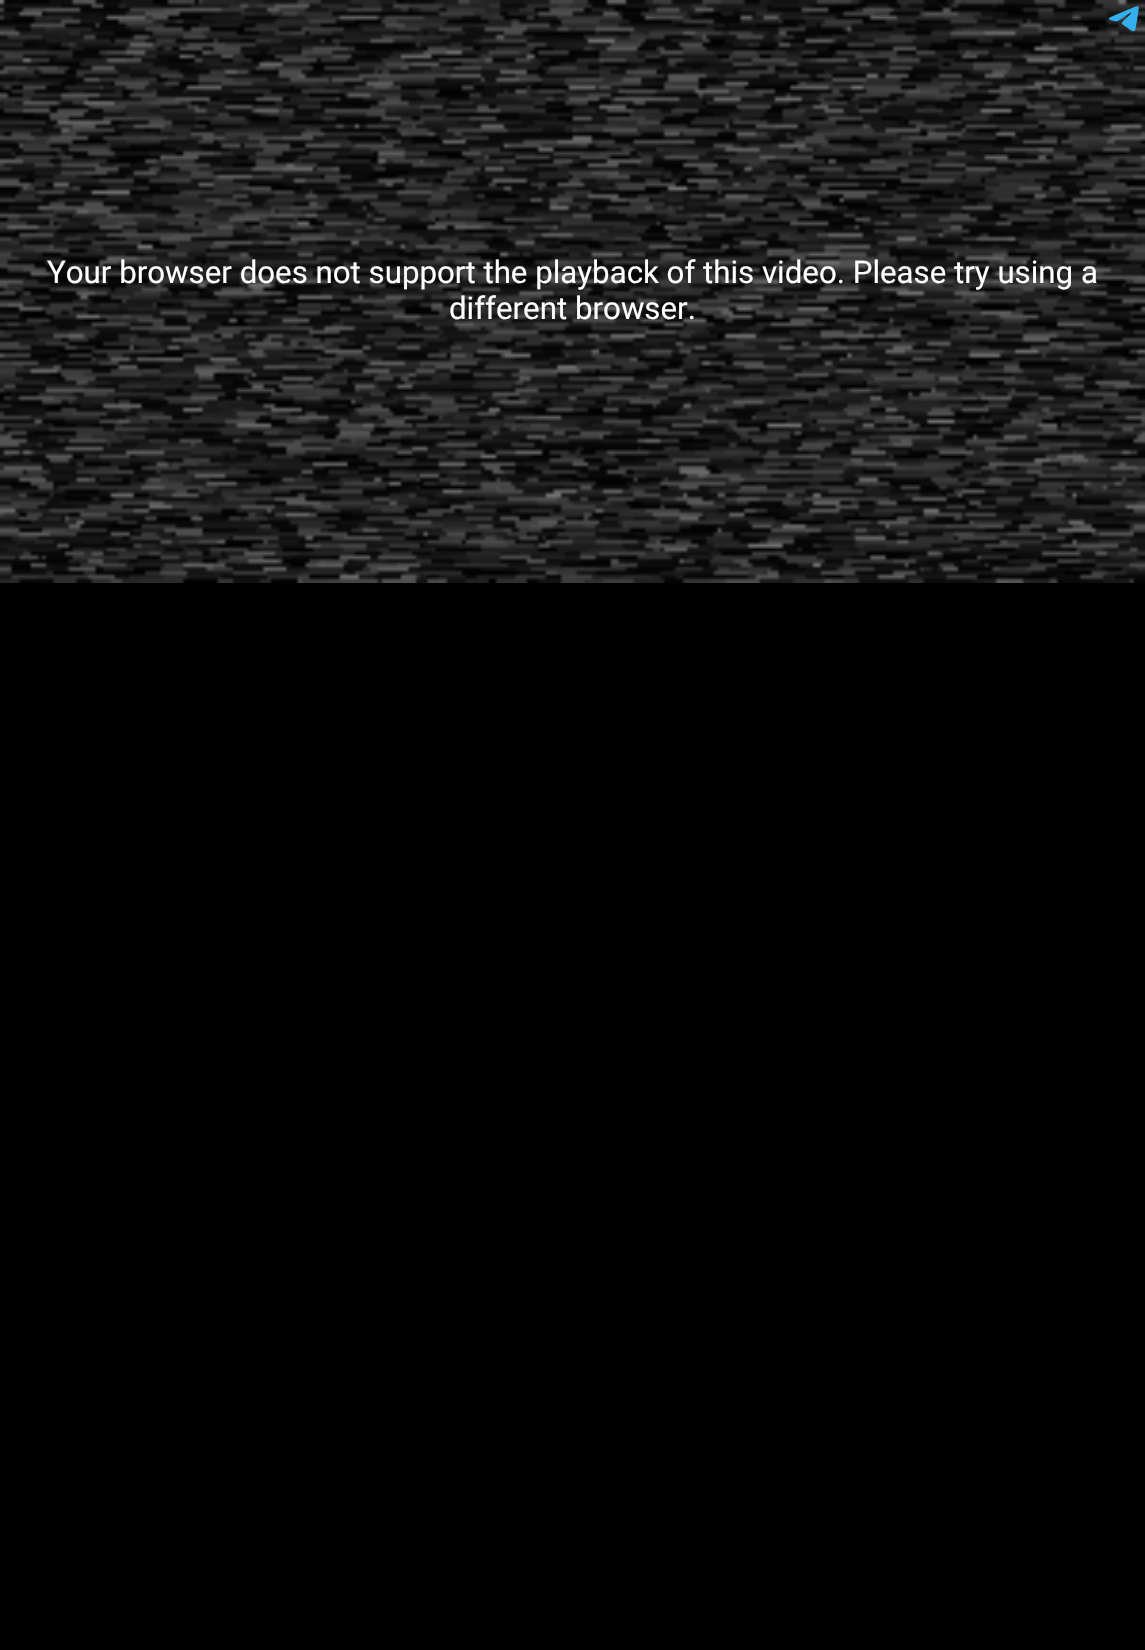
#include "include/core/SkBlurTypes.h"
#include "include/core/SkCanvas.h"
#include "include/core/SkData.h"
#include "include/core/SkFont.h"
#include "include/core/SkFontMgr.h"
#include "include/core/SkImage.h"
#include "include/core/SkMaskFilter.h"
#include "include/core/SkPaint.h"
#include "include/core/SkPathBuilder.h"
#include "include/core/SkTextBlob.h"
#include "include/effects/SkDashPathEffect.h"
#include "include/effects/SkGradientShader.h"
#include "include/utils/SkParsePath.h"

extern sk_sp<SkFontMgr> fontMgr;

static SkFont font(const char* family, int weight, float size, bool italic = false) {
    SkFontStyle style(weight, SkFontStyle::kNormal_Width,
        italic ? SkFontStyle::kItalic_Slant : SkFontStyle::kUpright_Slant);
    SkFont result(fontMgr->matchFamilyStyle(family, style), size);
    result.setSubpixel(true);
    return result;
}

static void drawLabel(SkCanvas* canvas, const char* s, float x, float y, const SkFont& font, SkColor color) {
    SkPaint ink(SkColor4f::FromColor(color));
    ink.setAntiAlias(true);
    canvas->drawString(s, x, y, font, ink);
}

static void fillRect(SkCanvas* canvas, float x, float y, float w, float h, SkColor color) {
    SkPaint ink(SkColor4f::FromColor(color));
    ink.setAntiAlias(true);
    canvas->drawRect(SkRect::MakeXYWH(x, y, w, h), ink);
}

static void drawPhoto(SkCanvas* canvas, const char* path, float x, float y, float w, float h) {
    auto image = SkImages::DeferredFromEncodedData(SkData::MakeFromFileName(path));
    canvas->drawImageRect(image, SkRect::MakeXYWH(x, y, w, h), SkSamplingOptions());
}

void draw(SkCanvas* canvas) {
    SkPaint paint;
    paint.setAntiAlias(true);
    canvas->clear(0xFF000000);
    fillRect(canvas, 0, 0, 1145, 583, 0xFF777777);
    drawPhoto(canvas, "assets/img2.png", 0, 0, 1145, 583);
    drawPhoto(canvas, "assets/img1.png", 1109, 6, 30, 25);
    SkFont font1 = font("Roboto", 400, 31.25f);
    drawLabel(canvas, "Your browser does not support the playback of this video. Please try using a", 47, 283, font1, 0xFFFFFFFF);
    drawLabel(canvas, "different browser.", 449, 319, font1, 0xFFFFFFFF);
}
